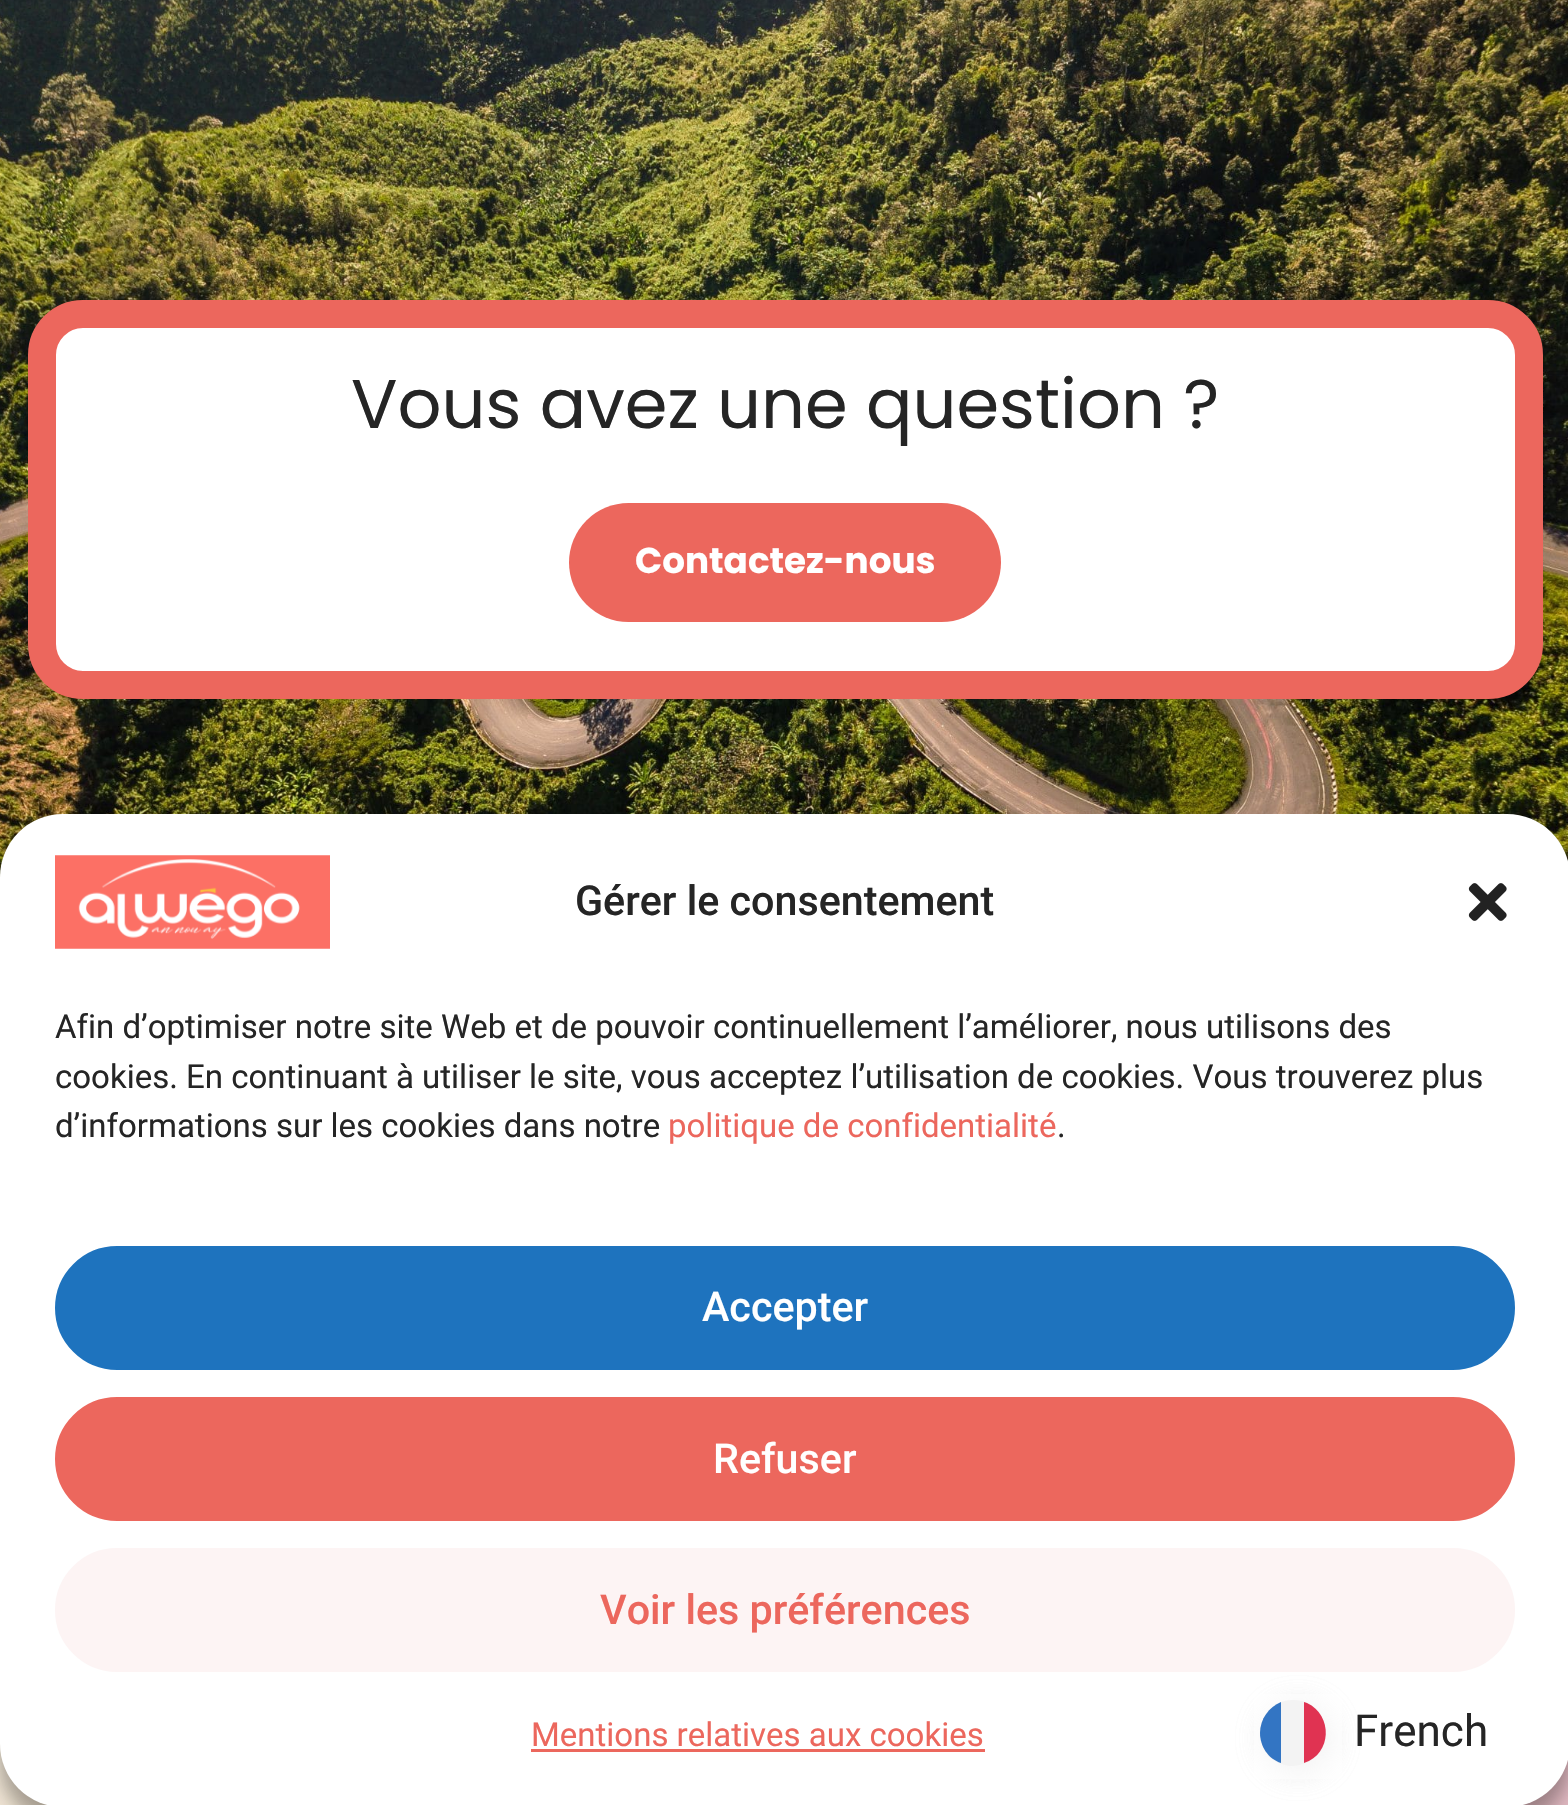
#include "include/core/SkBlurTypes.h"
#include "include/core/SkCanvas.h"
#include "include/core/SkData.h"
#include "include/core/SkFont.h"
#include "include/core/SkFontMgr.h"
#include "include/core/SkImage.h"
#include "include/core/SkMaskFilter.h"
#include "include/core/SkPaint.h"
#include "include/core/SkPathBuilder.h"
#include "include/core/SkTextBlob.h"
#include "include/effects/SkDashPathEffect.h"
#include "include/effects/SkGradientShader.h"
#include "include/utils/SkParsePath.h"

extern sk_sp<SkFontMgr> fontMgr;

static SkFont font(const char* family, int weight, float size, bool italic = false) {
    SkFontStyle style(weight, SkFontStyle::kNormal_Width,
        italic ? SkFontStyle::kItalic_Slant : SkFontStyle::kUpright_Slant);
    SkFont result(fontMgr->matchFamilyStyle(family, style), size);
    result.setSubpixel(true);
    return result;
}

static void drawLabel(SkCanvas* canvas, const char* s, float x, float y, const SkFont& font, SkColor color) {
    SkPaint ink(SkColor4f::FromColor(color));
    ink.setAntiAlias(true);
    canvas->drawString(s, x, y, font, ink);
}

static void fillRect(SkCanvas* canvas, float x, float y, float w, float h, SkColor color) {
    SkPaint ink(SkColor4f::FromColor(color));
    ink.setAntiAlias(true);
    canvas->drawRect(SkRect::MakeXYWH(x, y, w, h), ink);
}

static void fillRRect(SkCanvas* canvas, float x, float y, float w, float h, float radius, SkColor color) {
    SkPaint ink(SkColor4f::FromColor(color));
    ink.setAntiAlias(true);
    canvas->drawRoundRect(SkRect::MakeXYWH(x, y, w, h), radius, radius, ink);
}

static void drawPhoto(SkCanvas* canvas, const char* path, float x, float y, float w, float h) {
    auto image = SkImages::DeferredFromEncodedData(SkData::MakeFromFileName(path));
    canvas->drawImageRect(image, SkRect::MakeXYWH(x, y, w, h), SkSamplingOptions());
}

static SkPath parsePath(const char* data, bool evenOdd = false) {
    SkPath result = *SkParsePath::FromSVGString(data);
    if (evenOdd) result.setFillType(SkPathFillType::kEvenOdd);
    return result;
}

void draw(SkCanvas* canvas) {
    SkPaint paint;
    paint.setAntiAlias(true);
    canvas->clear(0xFFFFFFFF);
    drawPhoto(canvas, "assets/img1.png", 0, 0, 1568, 877);
    paint.setColor(0xFFFFFFFF);
    canvas->drawRoundRect(SkRect::MakeXYWH(42, 314, 1487, 371), 41, 41, paint);
    paint.setStroke(true);
    paint.setStrokeWidth(28);
    paint.setColor(0xFFEC675D);
    canvas->drawRoundRect(SkRect::MakeXYWH(42, 314, 1487, 371), 41, 41, paint);
    SkFont font1 = font("Poppins", 400, 68.75f);
    drawLabel(canvas, "Vous avez une question ?", 351, 428, font1, 0xFF252525);
    fillRRect(canvas, 569, 503, 432, 119, 59.5f, 0xFFEC675D);
    SkFont font2 = font("Poppins", 700, 35.75f);
    drawLabel(canvas, "Contactez-nous", 635, 573, font2, 0xFFFFFFFF);
    paint.setStroke(false);
    {
        const SkColor colors[] = {0xFFFFFFFF, 0xFFF5C989, 0xFFE9C0EE};
        const float stops[] = {0, 0.47f, 1};
        const SkPoint ends[] = {{-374, 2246}, {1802, 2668}};
        paint.setShader(SkGradientShader::MakeLinear(ends, colors, stops, 3, SkTileMode::kClamp));
        paint.setAlpha(255);
    }
    canvas->drawRect(SkRect::MakeXYWH(0, 1744, 1568, 61), paint);
    paint.setShader(nullptr);
    paint.setColor(0x3B000000);
    paint.setMaskFilter(SkMaskFilter::MakeBlur(kNormal_SkBlurStyle, 8));
    canvas->drawRoundRect(SkRect::MakeXYWH(0, 831, 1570, 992), 63, 63, paint);
    paint.setMaskFilter(nullptr);
    paint.setColor(0x30000000);
    paint.setMaskFilter(SkMaskFilter::MakeBlur(kNormal_SkBlurStyle, 27.5f));
    canvas->drawRoundRect(SkRect::MakeXYWH(0, 842, 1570, 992), 63, 63, paint);
    paint.setMaskFilter(nullptr);
    fillRRect(canvas, 0, 814, 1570, 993, 63, 0xFFFFFFFF);
    drawPhoto(canvas, "assets/img2.png", 55, 855, 275, 94);
    SkFont font3 = font("Roboto", 500, 41.25f);
    drawLabel(canvas, "Gérer le consentement", 575, 915, font3, 0xFF252525);
    drawPhoto(canvas, "assets/img3.png", 1468, 883, 39, 38);
    SkFont font4 = font("Roboto", 400, 33);
    drawLabel(canvas, "Afin d’optimiser notre site Web et de pouvoir continuellement l’améliorer, nous utilisons des", 55, 1038, font4, 0xFF252525);
    drawLabel(canvas, "cookies. En continuant à utiliser le site, vous acceptez l’utilisation de cookies. Vous trouverez plus", 55, 1088, font4, 0xFF252525);
    drawLabel(canvas, "d’informations sur les cookies dans notre", 55, 1137, font4, 0xFF252525);
    drawLabel(canvas, "politique de confidentialité", 668, 1137, font4, 0xFFEC675D);
    drawLabel(canvas, ".", 1057, 1137, font4, 0xFF252525);
    paint.setColor(0xFF1E73BE);
    canvas->drawRoundRect(SkRect::MakeXYWH(56.5f, 1247.5f, 1457, 121), 60.5f, 60.5f, paint);
    paint.setStroke(true);
    paint.setStrokeWidth(3);
    canvas->drawRoundRect(SkRect::MakeXYWH(56.5f, 1247.5f, 1457, 121), 60.5f, 60.5f, paint);
    drawLabel(canvas, "Accepter", 702, 1321, font3, 0xFFFFFFFF);
    paint.setStroke(false);
    paint.setColor(0xFFEC675D);
    canvas->drawRoundRect(SkRect::MakeXYWH(56.5f, 1398.5f, 1457, 121), 60.5f, 60.5f, paint);
    paint.setStroke(true);
    canvas->drawRoundRect(SkRect::MakeXYWH(56.5f, 1398.5f, 1457, 121), 60.5f, 60.5f, paint);
    drawLabel(canvas, "Refuser", 713, 1473, font3, 0xFFFFFFFF);
    paint.setStroke(false);
    paint.setColor(0xFFFDF4F4);
    canvas->drawRoundRect(SkRect::MakeXYWH(56.5f, 1549.5f, 1457, 121), 60.5f, 60.5f, paint);
    paint.setStroke(true);
    canvas->drawRoundRect(SkRect::MakeXYWH(56.5f, 1549.5f, 1457, 121), 60.5f, 60.5f, paint);
    drawLabel(canvas, "Voir les préférences", 600, 1624, font3, 0xFFEC675D);
    drawLabel(canvas, "Mentions relatives aux cookies", 531, 1746, font4, 0xFFEC675D);
    fillRect(canvas, 531, 1749, 454, 3, 0xFFEC675D);
    paint.setStroke(false);
    paint.setColor(0xCCEEEEEE);
    paint.setMaskFilter(SkMaskFilter::MakeBlur(kNormal_SkBlurStyle, 16.5f));
    canvas->drawRoundRect(SkRect::MakeXYWH(1265, 1705, 66, 66), 33, 33, paint);
    paint.setMaskFilter(nullptr);
    fillRect(canvas, 1254, 1694, 88, 85, 0xFFFFFFFF);
    paint.setMaskFilter(SkMaskFilter::MakeBlur(kNormal_SkBlurStyle, 16.5f));
    canvas->drawRoundRect(SkRect::MakeXYWH(1265, 1705, 66, 66), 33, 33, paint);
    paint.setMaskFilter(nullptr);
    paint.setColor(0xFFF3F3F3);
    canvas->drawPath(parsePath("M1293 1700C1335 1700 1338 1763 1292 1766C1287 1766 1282 1764 1277 1762C1248 1746 1259 1700 1293 1700Z"), paint);
    paint.setColor(0xFFE03352);
    canvas->drawPath(parsePath("M1307 1703C1333 1715 1332 1754 1304 1763V1702Z"), paint);
    paint.setColor(0xFF3375C3);
    canvas->drawPath(parsePath("M1260 1733C1260 1719 1269 1707 1281 1702V1763C1268 1759 1260 1746 1260 1733Z"), paint);
    SkFont font5 = font("Roboto", 400, 44);
    drawLabel(canvas, "French", 1354, 1746, font5, 0xFF252525);
}
